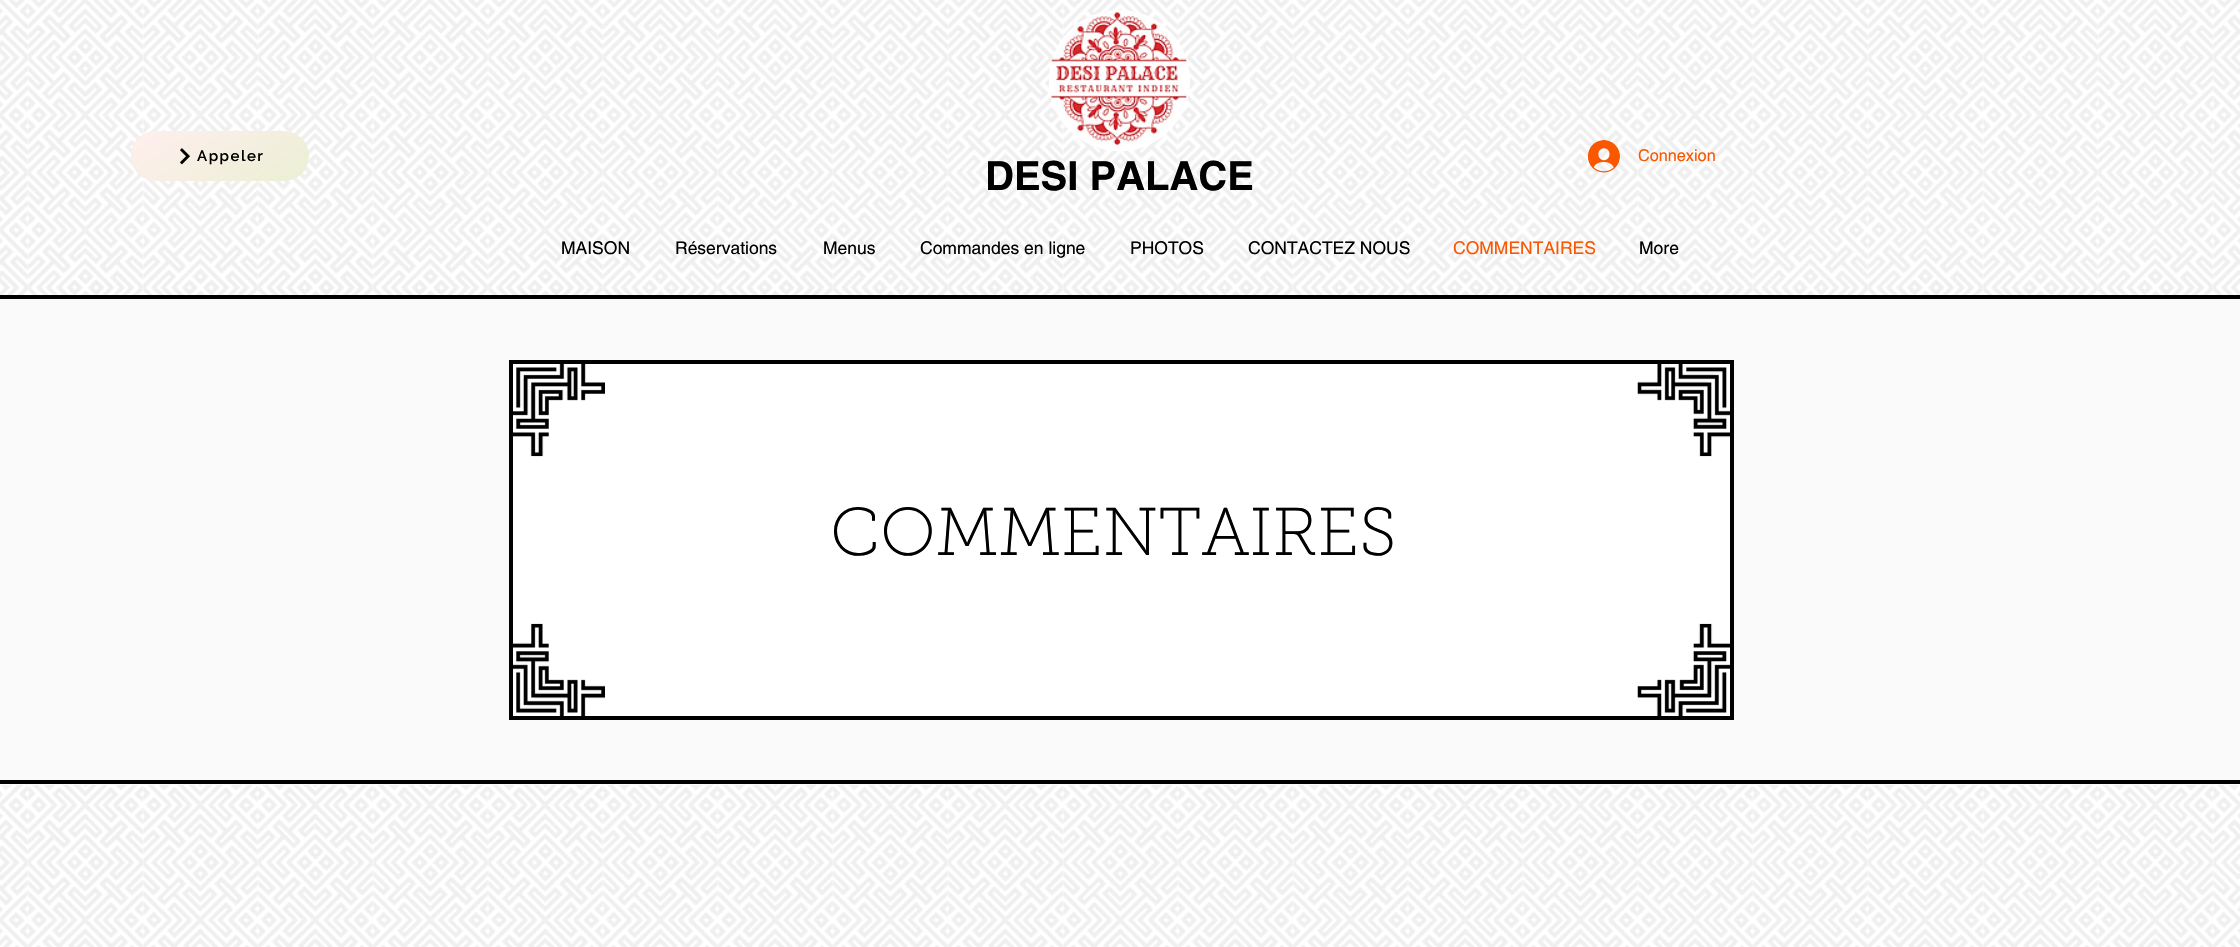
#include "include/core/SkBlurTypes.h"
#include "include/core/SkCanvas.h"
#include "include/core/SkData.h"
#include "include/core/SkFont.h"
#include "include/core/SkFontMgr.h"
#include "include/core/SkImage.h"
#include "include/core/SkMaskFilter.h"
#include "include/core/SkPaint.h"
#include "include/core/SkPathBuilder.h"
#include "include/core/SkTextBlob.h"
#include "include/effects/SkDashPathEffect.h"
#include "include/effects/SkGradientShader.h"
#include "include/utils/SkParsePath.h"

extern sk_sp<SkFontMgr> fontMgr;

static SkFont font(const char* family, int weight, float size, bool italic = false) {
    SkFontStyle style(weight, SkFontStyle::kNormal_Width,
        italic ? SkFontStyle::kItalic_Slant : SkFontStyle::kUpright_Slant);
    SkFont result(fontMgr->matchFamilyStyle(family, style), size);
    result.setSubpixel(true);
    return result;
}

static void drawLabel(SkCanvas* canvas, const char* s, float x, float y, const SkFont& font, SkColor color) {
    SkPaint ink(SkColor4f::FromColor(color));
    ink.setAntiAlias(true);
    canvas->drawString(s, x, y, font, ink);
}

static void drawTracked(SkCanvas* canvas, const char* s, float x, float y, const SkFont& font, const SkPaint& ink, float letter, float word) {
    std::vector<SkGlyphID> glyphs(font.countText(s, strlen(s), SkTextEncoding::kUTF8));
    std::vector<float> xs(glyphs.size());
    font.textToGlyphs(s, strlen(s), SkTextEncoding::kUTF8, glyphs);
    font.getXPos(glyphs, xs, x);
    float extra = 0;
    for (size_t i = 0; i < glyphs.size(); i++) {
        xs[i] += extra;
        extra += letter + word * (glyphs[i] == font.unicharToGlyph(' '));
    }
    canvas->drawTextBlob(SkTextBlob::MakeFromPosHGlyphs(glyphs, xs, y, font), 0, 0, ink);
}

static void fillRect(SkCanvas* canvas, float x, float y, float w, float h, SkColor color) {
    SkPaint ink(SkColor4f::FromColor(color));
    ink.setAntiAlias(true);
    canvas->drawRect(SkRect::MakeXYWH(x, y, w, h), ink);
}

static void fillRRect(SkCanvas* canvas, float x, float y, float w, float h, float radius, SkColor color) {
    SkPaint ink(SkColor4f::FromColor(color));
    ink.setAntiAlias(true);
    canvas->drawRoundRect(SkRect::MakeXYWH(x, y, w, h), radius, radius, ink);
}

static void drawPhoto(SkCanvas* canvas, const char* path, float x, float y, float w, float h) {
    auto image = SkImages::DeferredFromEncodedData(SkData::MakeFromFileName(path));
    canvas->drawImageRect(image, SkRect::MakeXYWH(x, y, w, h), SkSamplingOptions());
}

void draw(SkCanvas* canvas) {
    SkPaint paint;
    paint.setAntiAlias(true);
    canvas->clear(0xFFFFFFFF);
    drawPhoto(canvas, "assets/img1.png", 0, 0, 2240, 947);
    drawPhoto(canvas, "assets/img2.png", 1049, 10, 141, 141);
    fillRRect(canvas, 131, 131, 178, 50, 25, 0xFFEBF0D4);
    {
        const SkColor colors[] = {0xFFFFEEEE, 0x00FFEEEE};
        const float stops[] = {0, 1};
        const SkPoint ends[] = {{179, 98}, {261, 215}};
        paint.setShader(SkGradientShader::MakeLinear(ends, colors, stops, 2, SkTileMode::kClamp));
        paint.setAlpha(255);
    }
    canvas->drawRoundRect(SkRect::MakeXYWH(131, 131, 178, 50), 25, 25, paint);
    drawPhoto(canvas, "assets/img3.png", 180, 148, 10, 17);
    SkFont font1 = font("Raleway", 600, 15);
    paint.setShader(nullptr);
    paint.setColor(0xFF000000);
    drawTracked(canvas, "Appeler", 197, 161, font1, paint, 1.5f, 0);
    drawPhoto(canvas, "assets/img4.png", 1588, 140, 32, 33);
    SkFont font2 = font("helvetica", 400, 16.25f);
    drawLabel(canvas, "Connexion", 1638, 161, font2, 0xFFF95700);
    SkFont font3 = font("helvetica", 700, 40);
    drawLabel(canvas, "DESI PALACE", 985, 190, font3, 0xFF000000);
    SkFont font4 = font("helvetica", 400, 17.5f);
    drawLabel(canvas, "MAISON", 561, 254, font4, 0xFF000000);
    drawLabel(canvas, "Réservations", 675, 254, font4, 0xFF000000);
    drawLabel(canvas, "Menus", 823, 254, font4, 0xFF000000);
    drawLabel(canvas, "Commandes en ligne", 920, 254, font4, 0xFF000000);
    drawLabel(canvas, "PHOTOS", 1130, 254, font4, 0xFF000000);
    drawLabel(canvas, "CONTACTEZ NOUS", 1248, 254, font4, 0xFF000000);
    drawLabel(canvas, "COMMENTAIRES", 1453, 254, font4, 0xFFF95700);
    drawLabel(canvas, "More", 1639, 254, font4, 0xFF000000);
    fillRect(canvas, 0, 299, 2240, 486, 0xFFFAFAFA);
    fillRect(canvas, 0, 295, 2240, 4, 0xFF000000);
    paint.setColor(0xFFFFFFFF);
    canvas->drawRect(SkRect::MakeXYWH(511, 362, 1221, 356), paint);
    paint.setStroke(true);
    paint.setStrokeWidth(4);
    paint.setColor(0xFF000000);
    canvas->drawRect(SkRect::MakeXYWH(511, 362, 1221, 356), paint);
    drawPhoto(canvas, "assets/img5.png", 513, 364, 92, 93);
    drawPhoto(canvas, "assets/img6.png", 1637, 364, 93, 93);
    SkFont font5 = font("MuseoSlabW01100", 100, 67.5f);
    drawLabel(canvas, "COMMENTAIRES", 830, 555, font5, 0xFF000000);
    drawPhoto(canvas, "assets/img7.png", 513, 623, 92, 93);
    drawPhoto(canvas, "assets/img8.png", 1637, 623, 93, 93);
    fillRect(canvas, 0, 780, 2240, 4, 0xFF000000);
}
